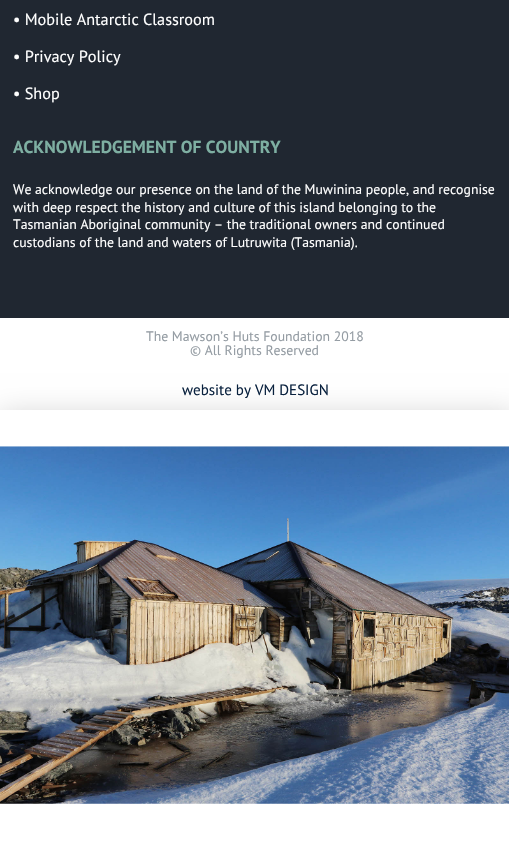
#include "include/core/SkBlurTypes.h"
#include "include/core/SkCanvas.h"
#include "include/core/SkData.h"
#include "include/core/SkFont.h"
#include "include/core/SkFontMgr.h"
#include "include/core/SkImage.h"
#include "include/core/SkMaskFilter.h"
#include "include/core/SkPaint.h"
#include "include/core/SkPathBuilder.h"
#include "include/core/SkTextBlob.h"
#include "include/effects/SkDashPathEffect.h"
#include "include/effects/SkGradientShader.h"
#include "include/utils/SkParsePath.h"

extern sk_sp<SkFontMgr> fontMgr;

static SkFont font(const char* family, int weight, float size, bool italic = false) {
    SkFontStyle style(weight, SkFontStyle::kNormal_Width,
        italic ? SkFontStyle::kItalic_Slant : SkFontStyle::kUpright_Slant);
    SkFont result(fontMgr->matchFamilyStyle(family, style), size);
    result.setSubpixel(true);
    return result;
}

static void drawLabel(SkCanvas* canvas, const char* s, float x, float y, const SkFont& font, SkColor color) {
    SkPaint ink(SkColor4f::FromColor(color));
    ink.setAntiAlias(true);
    canvas->drawString(s, x, y, font, ink);
}

static void fillRect(SkCanvas* canvas, float x, float y, float w, float h, SkColor color) {
    SkPaint ink(SkColor4f::FromColor(color));
    ink.setAntiAlias(true);
    canvas->drawRect(SkRect::MakeXYWH(x, y, w, h), ink);
}

static void drawPhoto(SkCanvas* canvas, const char* path, float x, float y, float w, float h) {
    auto image = SkImages::DeferredFromEncodedData(SkData::MakeFromFileName(path));
    canvas->drawImageRect(image, SkRect::MakeXYWH(x, y, w, h), SkSamplingOptions());
}

void draw(SkCanvas* canvas) {
    SkPaint paint;
    paint.setAntiAlias(true);
    canvas->clear(0xFFFFFFFF);
    fillRect(canvas, 0, 0, 509, 318, 0xFF202731);
    SkFont font1 = font("PT Sans", 400, 16.25f);
    drawLabel(canvas, "• Mobile Antarctic Classroom", 13, 25, font1, 0xFFFFFFFF);
    drawLabel(canvas, "• Privacy Policy", 13, 62, font1, 0xFFFFFFFF);
    drawLabel(canvas, "• Shop", 13, 99, font1, 0xFFFFFFFF);
    SkFont font2 = font("PT Sans", 700, 17.5f);
    drawLabel(canvas, "ACKNOWLEDGEMENT OF COUNTRY", 13, 153, font2, 0xFF7EAFA2);
    SkFont font3 = font("PT Sans", 400, 13.75f);
    drawLabel(canvas, "We acknowledge our presence on the land of the Muwinina people, and recognise", 13, 194, font3, 0xFFFFFFFF);
    drawLabel(canvas, "with deep respect the history and culture of this island belonging to the", 13, 212, font3, 0xFFFFFFFF);
    drawLabel(canvas, "Tasmanian Aboriginal community – the traditional owners and continued", 13, 229, font3, 0xFFFFFFFF);
    drawLabel(canvas, "custodians of the land and waters of Lutruwita (Tasmania).", 13, 247, font3, 0xFFFFFFFF);
    drawLabel(canvas, "The Mawson’s Huts Foundation 2018", 146, 341, font3, 0xFF949CA3);
    drawLabel(canvas, "© All Rights Reserved", 190, 355, font3, 0xFF949CA3);
    paint.setColor(0x33000000);
    paint.setMaskFilter(SkMaskFilter::MakeBlur(kNormal_SkBlurStyle, 14.5f));
    canvas->drawRect(SkRect::MakeXYWH(-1, 416, 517, 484), paint);
    paint.setMaskFilter(nullptr);
    SkFont font4 = font("PT Sans", 400, 15);
    drawLabel(canvas, "website by VM DESIGN", 182, 395, font4, 0xFF09213E);
    fillRect(canvas, 0, 410, 509, 446, 0xFFFFFFFF);
    drawPhoto(canvas, "assets/img1.png", 0, 446, 509, 358);
}
